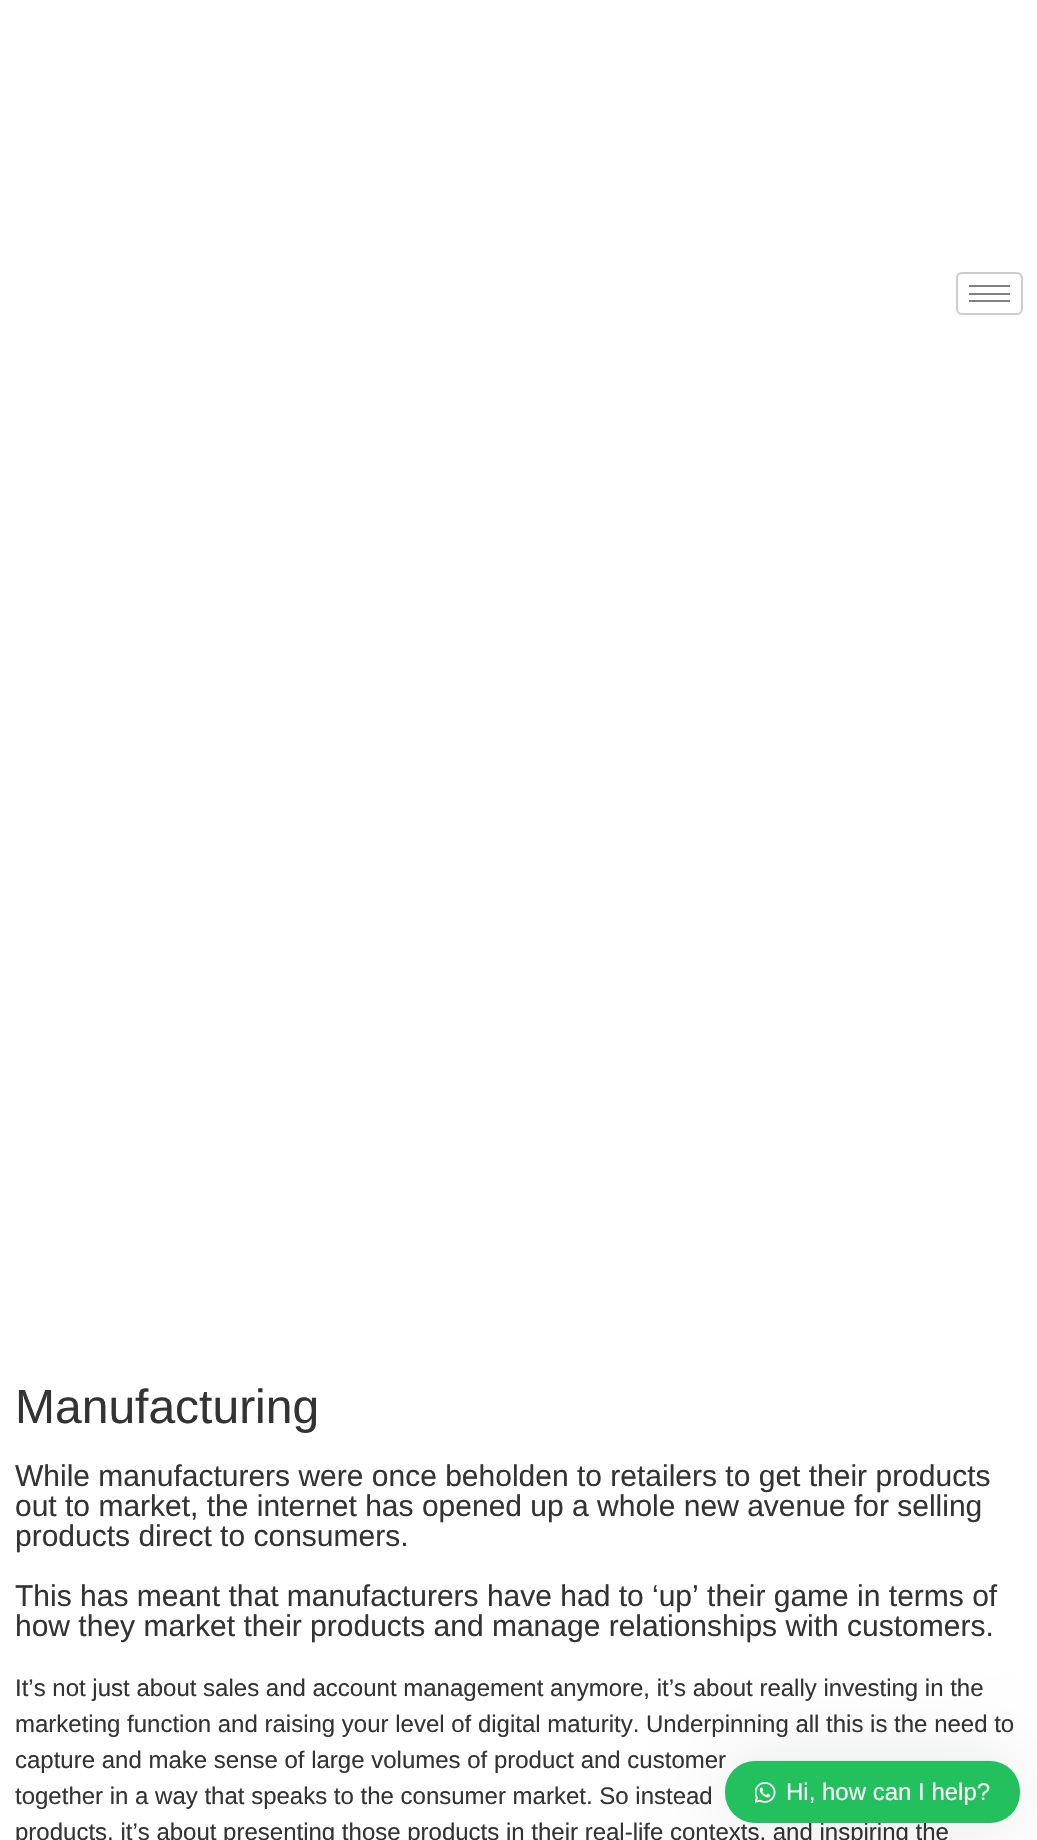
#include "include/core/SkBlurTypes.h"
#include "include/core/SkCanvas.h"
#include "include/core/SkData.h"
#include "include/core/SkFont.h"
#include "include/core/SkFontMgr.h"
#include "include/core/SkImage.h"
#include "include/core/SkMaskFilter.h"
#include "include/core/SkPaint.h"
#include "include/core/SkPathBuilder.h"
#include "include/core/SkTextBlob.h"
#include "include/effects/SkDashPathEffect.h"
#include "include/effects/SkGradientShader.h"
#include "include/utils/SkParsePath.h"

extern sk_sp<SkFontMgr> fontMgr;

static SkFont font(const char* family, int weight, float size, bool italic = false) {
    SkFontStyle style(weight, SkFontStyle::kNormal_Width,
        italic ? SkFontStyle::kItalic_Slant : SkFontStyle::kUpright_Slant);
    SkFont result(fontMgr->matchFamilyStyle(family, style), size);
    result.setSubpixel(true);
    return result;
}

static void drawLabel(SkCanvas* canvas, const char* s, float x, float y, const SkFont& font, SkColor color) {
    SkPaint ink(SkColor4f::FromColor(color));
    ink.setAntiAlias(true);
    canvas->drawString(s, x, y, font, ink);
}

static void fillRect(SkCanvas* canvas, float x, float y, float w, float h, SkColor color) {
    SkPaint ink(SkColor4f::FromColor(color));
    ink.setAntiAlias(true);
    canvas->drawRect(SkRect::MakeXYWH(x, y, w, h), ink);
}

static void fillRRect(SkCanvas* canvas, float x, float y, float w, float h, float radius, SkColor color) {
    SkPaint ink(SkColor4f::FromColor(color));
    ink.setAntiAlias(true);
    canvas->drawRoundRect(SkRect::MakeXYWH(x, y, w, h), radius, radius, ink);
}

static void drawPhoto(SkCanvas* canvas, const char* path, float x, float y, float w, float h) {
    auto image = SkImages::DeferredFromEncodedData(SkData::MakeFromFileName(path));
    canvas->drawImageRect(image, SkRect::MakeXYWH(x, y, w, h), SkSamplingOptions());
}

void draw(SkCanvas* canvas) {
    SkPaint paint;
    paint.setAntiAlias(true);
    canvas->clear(0xFFFFFFFF);
    paint.setStroke(true);
    paint.setStrokeWidth(2);
    paint.setColor(0xFFCCCCCC);
    canvas->drawRoundRect(SkRect::MakeXYWH(957, 273, 65, 41), 5, 5, paint);
    fillRect(canvas, 969, 285, 41, 2, 0xFF808080);
    fillRect(canvas, 969, 293, 41, 2, 0xFF808080);
    fillRect(canvas, 969, 300, 41, 2, 0xFF808080);
    SkFont font1 = font("Liberation Sans", 400, 48);
    drawLabel(canvas, "Manufacturing", 15, 1423, font1, 0xFF333333);
    SkFont font2 = font("Liberation Sans", 400, 30);
    drawLabel(canvas, "While manufacturers were once beholden to retailers to get their products", 15, 1486, font2, 0xFF333333);
    drawLabel(canvas, "out to market, the internet has opened up a whole new avenue for selling", 15, 1516, font2, 0xFF333333);
    drawLabel(canvas, "products direct to consumers.", 15, 1546, font2, 0xFF333333);
    drawLabel(canvas, "This has meant that manufacturers have had to ‘up’ their game in terms of", 15, 1606, font2, 0xFF333333);
    drawLabel(canvas, "how they market their products and manage relationships with customers.", 15, 1636, font2, 0xFF333333);
    SkFont font3 = font("Liberation Sans", 400, 24);
    drawLabel(canvas, "It’s not just about sales and account management anymore, it’s about really investing in the", 15, 1696, font3, 0xFF333333);
    drawLabel(canvas, "marketing function and raising your level of digital maturity. Underpinning all this is the need to", 15, 1732, font3, 0xFF333333);
    drawLabel(canvas, "capture and make sense of large volumes of product and customer", 15, 1768, font3, 0xFF333333);
    drawLabel(canvas, "together in a way that speaks to the consumer market. So instead", 15, 1804, font3, 0xFF333333);
    drawLabel(canvas, "products, it’s about presenting those products in their real-life contexts, and inspiring the", 15, 1840, font3, 0xFF333333);
    paint.setStroke(false);
    paint.setColor(0x1A000000);
    paint.setMaskFilter(SkMaskFilter::MakeBlur(kNormal_SkBlurStyle, 37.5f));
    canvas->drawRoundRect(SkRect::MakeXYWH(725, 1761, 295, 62), 30, 30, paint);
    paint.setMaskFilter(nullptr);
    fillRRect(canvas, 725, 1761, 295, 62, 30, 0xFF22C15E);
    drawPhoto(canvas, "assets/img1.png", 755, 1782, 21, 21);
    drawLabel(canvas, "Hi, how can I help?", 786, 1800, font3, 0xFFFFFFFF);
}
